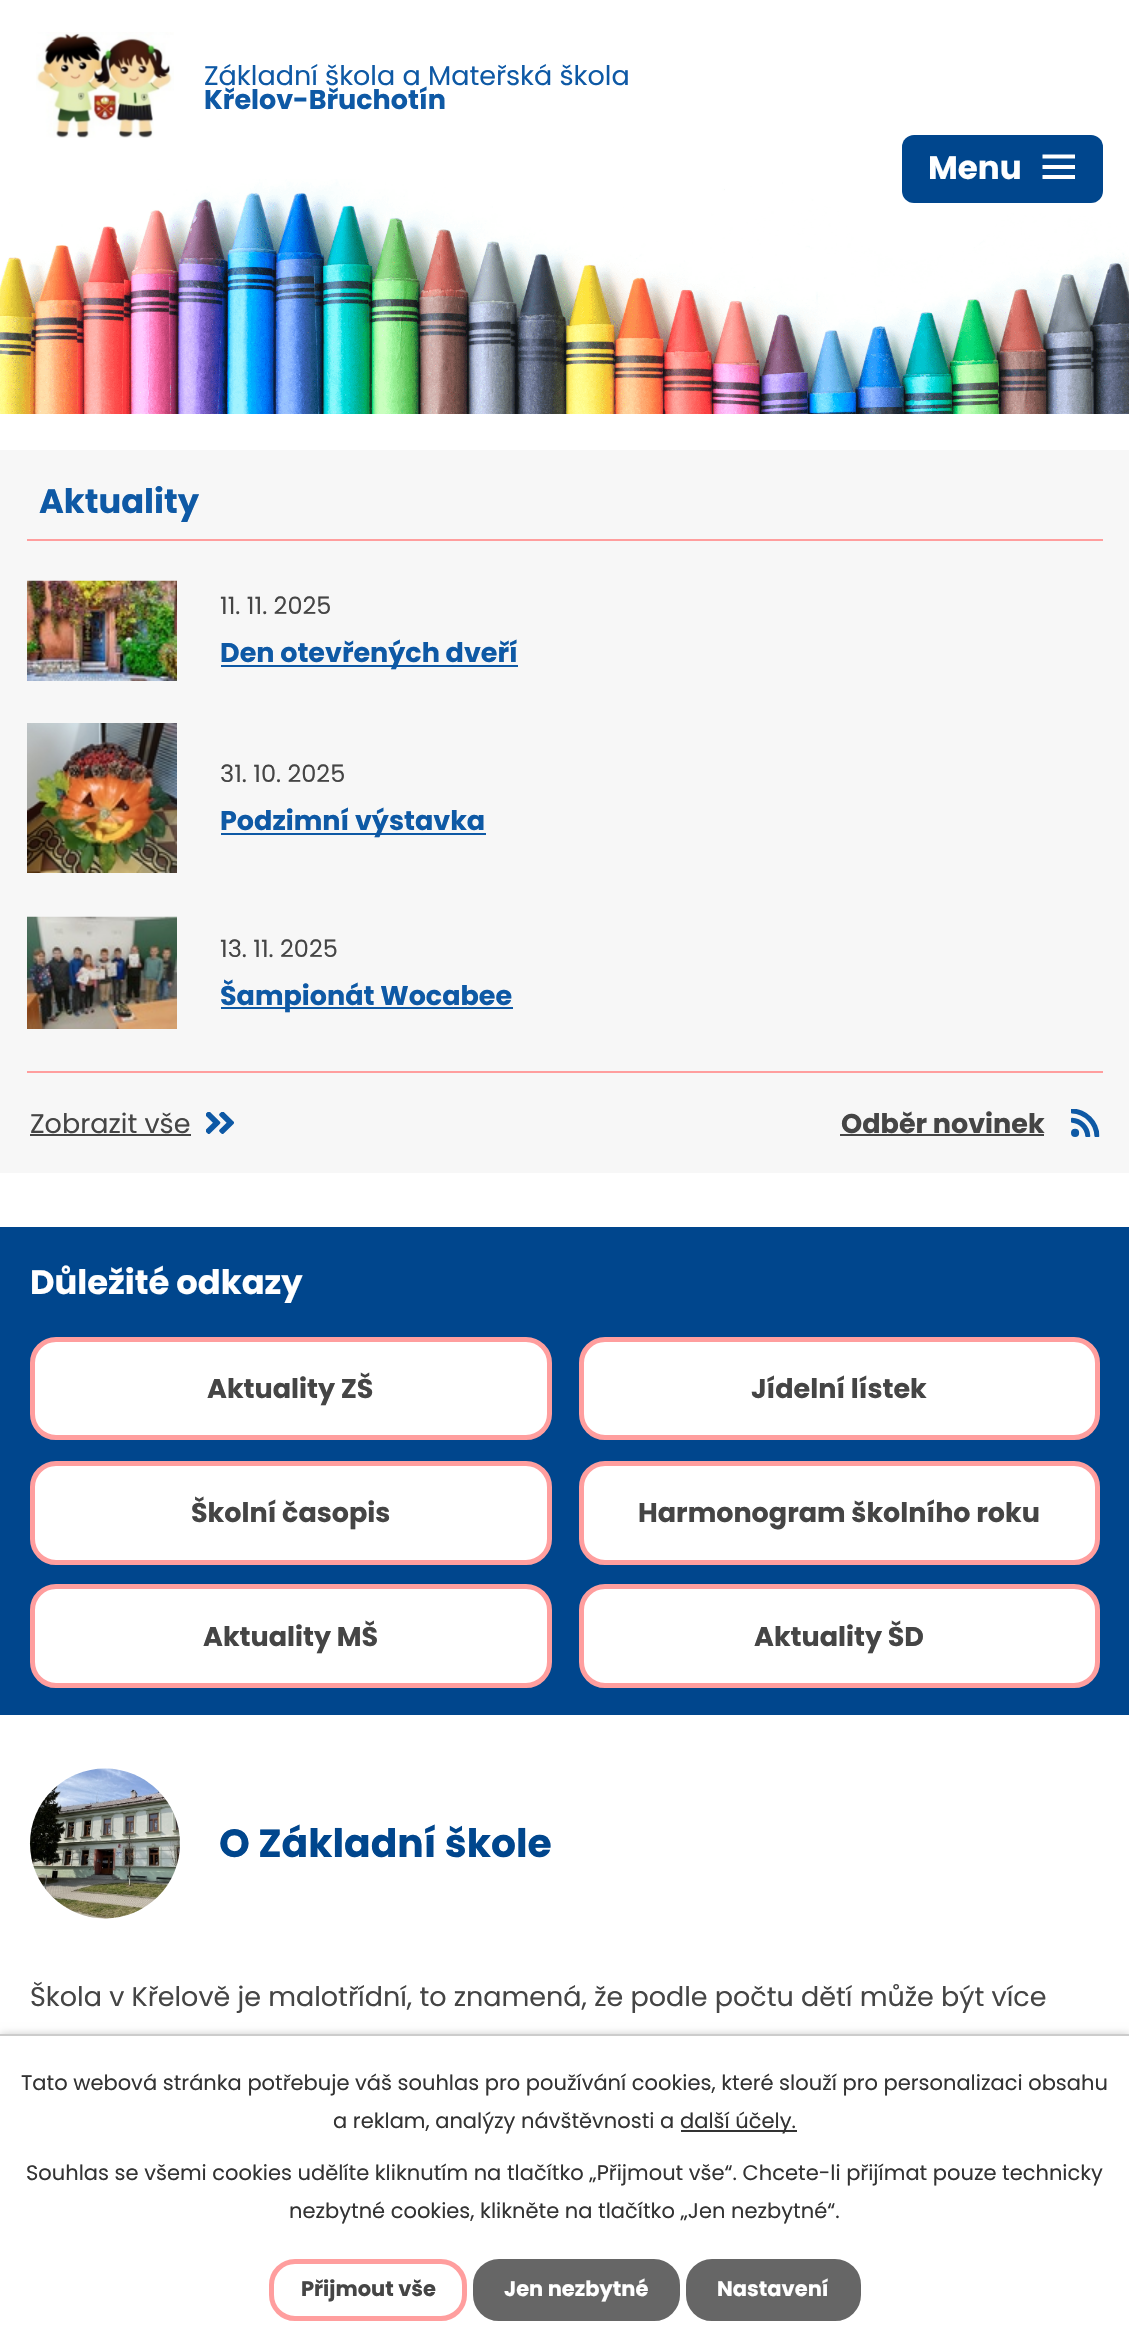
#include "include/core/SkBlurTypes.h"
#include "include/core/SkCanvas.h"
#include "include/core/SkData.h"
#include "include/core/SkFont.h"
#include "include/core/SkFontMgr.h"
#include "include/core/SkImage.h"
#include "include/core/SkMaskFilter.h"
#include "include/core/SkPaint.h"
#include "include/core/SkPathBuilder.h"
#include "include/core/SkTextBlob.h"
#include "include/effects/SkDashPathEffect.h"
#include "include/effects/SkGradientShader.h"
#include "include/utils/SkParsePath.h"

extern sk_sp<SkFontMgr> fontMgr;

static SkFont font(const char* family, int weight, float size, bool italic = false) {
    SkFontStyle style(weight, SkFontStyle::kNormal_Width,
        italic ? SkFontStyle::kItalic_Slant : SkFontStyle::kUpright_Slant);
    SkFont result(fontMgr->matchFamilyStyle(family, style), size);
    result.setSubpixel(true);
    return result;
}

static void drawLabel(SkCanvas* canvas, const char* s, float x, float y, const SkFont& font, SkColor color) {
    SkPaint ink(SkColor4f::FromColor(color));
    ink.setAntiAlias(true);
    canvas->drawString(s, x, y, font, ink);
}

static void fillRect(SkCanvas* canvas, float x, float y, float w, float h, SkColor color) {
    SkPaint ink(SkColor4f::FromColor(color));
    ink.setAntiAlias(true);
    canvas->drawRect(SkRect::MakeXYWH(x, y, w, h), ink);
}

static void fillRRect(SkCanvas* canvas, float x, float y, float w, float h, float radius, SkColor color) {
    SkPaint ink(SkColor4f::FromColor(color));
    ink.setAntiAlias(true);
    canvas->drawRoundRect(SkRect::MakeXYWH(x, y, w, h), radius, radius, ink);
}

static void drawPhoto(SkCanvas* canvas, const char* path, float x, float y, float w, float h) {
    auto image = SkImages::DeferredFromEncodedData(SkData::MakeFromFileName(path));
    canvas->drawImageRect(image, SkRect::MakeXYWH(x, y, w, h), SkSamplingOptions());
}

static SkPath parsePath(const char* data, bool evenOdd = false) {
    SkPath result = *SkParsePath::FromSVGString(data);
    if (evenOdd) result.setFillType(SkPathFillType::kEvenOdd);
    return result;
}

void draw(SkCanvas* canvas) {
    SkPaint paint;
    paint.setAntiAlias(true);
    canvas->clear(0xFFFFFFFF);
    drawPhoto(canvas, "assets/img1.png", 36, 32, 138, 106);
    SkFont font1 = font("Poppins", 400, 27);
    drawLabel(canvas, "Základní škola a Mateřská škola", 204, 85, font1, 0xFF0E59A5);
    SkFont font2 = font("Poppins", 700, 27);
    drawLabel(canvas, "Křelov-Břuchotín", 204, 109, font2, 0xFF0E59A5);
    drawPhoto(canvas, "assets/img2.png", 0, 179, 1129, 235);
    fillRRect(canvas, 902, 135, 201, 68, 12, 0xFF00468D);
    SkFont font3 = font("Poppins", 700, 32.5f);
    drawLabel(canvas, "Menu", 928, 179, font3, 0xFFFFFFFF);
    paint.setColor(0xFFFFFFFF);
    canvas->drawPath(parsePath("M1042.5 179V175H1075V179ZM1042.5 154.5H1075V158.5H1042.5ZM1042.5 169V165H1075V169Z"), paint);
    fillRect(canvas, 0, 450, 1129, 723, 0xFFF7F7F7);
    SkFont font4 = font("Poppins", 700, 33.75f);
    drawLabel(canvas, "Aktuality", 39, 513, font4, 0xFF0E59A5);
    fillRect(canvas, 27, 539, 1076, 2, 0xFFFF9E9E);
    fillRect(canvas, 27, 1071, 1076, 2, 0xFFFF9E9E);
    drawPhoto(canvas, "assets/img3.png", 27, 580, 150, 101);
    SkFont font5 = font("Poppins", 400, 24);
    drawLabel(canvas, "11. 11. 2025", 220, 614, font5, 0xFF454545);
    fillRect(canvas, 221, 665, 297, 2, 0xFF0E59A5);
    drawLabel(canvas, "Den otevřených dveří", 220, 662, font2, 0xFF0E59A5);
    drawPhoto(canvas, "assets/img4.png", 27, 723, 150, 150);
    drawLabel(canvas, "31. 10. 2025", 220, 782, font5, 0xFF454545);
    fillRect(canvas, 221, 833, 265, 2, 0xFF0E59A5);
    drawLabel(canvas, "Podzimní výstavka", 220, 830, font2, 0xFF0E59A5);
    drawPhoto(canvas, "assets/img5.png", 27, 916, 150, 113);
    drawLabel(canvas, "13. 11. 2025", 220, 957, font5, 0xFF454545);
    fillRect(canvas, 221, 1007, 292, 2, 0xFF0E59A5);
    drawLabel(canvas, "Šampionát Wocabee", 220, 1005, font2, 0xFF0E59A5);
    drawLabel(canvas, "Zobrazit vše", 30, 1133, font1, 0xFF454545);
    fillRect(canvas, 30, 1134, 161, 2, 0xFF454545);
    drawPhoto(canvas, "assets/img6.png", 206, 1112, 28, 22);
    drawLabel(canvas, "Odběr novinek", 841, 1133, font2, 0xFF454545);
    fillRect(canvas, 840, 1134, 204, 2, 0xFF454545);
    drawPhoto(canvas, "assets/img7.png", 1071, 1109, 29, 28);
    fillRect(canvas, 0, 1227, 1129, 488, 0xFF00468D);
    drawLabel(canvas, "Důležité odkazy", 30, 1294, font4, 0xFFFFFFFF);
    canvas->drawRoundRect(SkRect::MakeXYWH(32.5f, 1339.5f, 517, 98), 23.5f, 23.5f, paint);
    paint.setStroke(true);
    paint.setStrokeWidth(5);
    paint.setColor(0xFFFF9E9E);
    canvas->drawRoundRect(SkRect::MakeXYWH(32.5f, 1339.5f, 517, 98), 23.5f, 23.5f, paint);
    drawLabel(canvas, "Aktuality ZŠ", 207, 1398, font2, 0xFF454545);
    paint.setStroke(false);
    paint.setColor(0xFFFFFFFF);
    canvas->drawRoundRect(SkRect::MakeXYWH(581.5f, 1339.5f, 516, 98), 23.5f, 23.5f, paint);
    paint.setStroke(true);
    paint.setColor(0xFFFF9E9E);
    canvas->drawRoundRect(SkRect::MakeXYWH(581.5f, 1339.5f, 516, 98), 23.5f, 23.5f, paint);
    drawLabel(canvas, "Jídelní lístek", 751, 1398, font2, 0xFF454545);
    paint.setStroke(false);
    paint.setColor(0xFFFFFFFF);
    canvas->drawRoundRect(SkRect::MakeXYWH(32.5f, 1463.5f, 517, 99), 23.5f, 23.5f, paint);
    paint.setStroke(true);
    paint.setColor(0xFFFF9E9E);
    canvas->drawRoundRect(SkRect::MakeXYWH(32.5f, 1463.5f, 517, 99), 23.5f, 23.5f, paint);
    drawLabel(canvas, "Školní časopis", 191, 1522, font2, 0xFF454545);
    paint.setStroke(false);
    paint.setColor(0xFFFFFFFF);
    canvas->drawRoundRect(SkRect::MakeXYWH(581.5f, 1463.5f, 516, 99), 23.5f, 23.5f, paint);
    paint.setStroke(true);
    paint.setColor(0xFFFF9E9E);
    canvas->drawRoundRect(SkRect::MakeXYWH(581.5f, 1463.5f, 516, 99), 23.5f, 23.5f, paint);
    drawLabel(canvas, "Harmonogram školního roku", 638, 1522, font2, 0xFF454545);
    paint.setStroke(false);
    paint.setColor(0xFFFFFFFF);
    canvas->drawRoundRect(SkRect::MakeXYWH(32.5f, 1586.5f, 517, 99), 23.5f, 23.5f, paint);
    paint.setStroke(true);
    paint.setColor(0xFFFF9E9E);
    canvas->drawRoundRect(SkRect::MakeXYWH(32.5f, 1586.5f, 517, 99), 23.5f, 23.5f, paint);
    drawLabel(canvas, "Aktuality MŠ", 203, 1646, font2, 0xFF454545);
    paint.setStroke(false);
    paint.setColor(0xFFFFFFFF);
    canvas->drawRoundRect(SkRect::MakeXYWH(581.5f, 1586.5f, 516, 99), 23.5f, 23.5f, paint);
    paint.setStroke(true);
    paint.setColor(0xFFFF9E9E);
    canvas->drawRoundRect(SkRect::MakeXYWH(581.5f, 1586.5f, 516, 99), 23.5f, 23.5f, paint);
    drawLabel(canvas, "Aktuality ŠD", 754, 1646, font2, 0xFF454545);
    drawPhoto(canvas, "assets/img8.png", 29, 1768, 151, 151);
    SkFont font6 = font("Poppins", 700, 39.25f);
    drawLabel(canvas, "O Základní škole", 219, 1857, font6, 0xFF00468D);
    drawLabel(canvas, "Škola v Křelově je malotřídní, to znamená, že podle počtu dětí může být více", 30, 2006, font1, 0xFF454545);
    paint.setStroke(false);
    paint.setColor(0x33000000);
    paint.setMaskFilter(SkMaskFilter::MakeBlur(kNormal_SkBlurStyle, 4));
    canvas->drawRect(SkRect::MakeXYWH(0, 2034, 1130, 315), paint);
    paint.setMaskFilter(nullptr);
    fillRect(canvas, 0, 2036, 1129, 312, 0xFFFFFFFF);
    fillRect(canvas, 0, 2034, 1129, 2, 0xFFCCCCCC);
    SkFont font7 = font("Poppins", 400, 21);
    drawLabel(canvas, "Tato webová stránka potřebuje váš souhlas pro používání cookies, které slouží pro personalizaci obsahu", 21, 2090, font7, 0xFF333333);
    drawLabel(canvas, "a reklam, analýzy návštěvnosti a", 333, 2128, font7, 0xFF333333);
    fillRect(canvas, 681, 2130, 116, 2, 0xFF333333);
    drawLabel(canvas, "další účely.", 680, 2128, font7, 0xFF333333);
    drawLabel(canvas, "Souhlas se všemi cookies udělíte kliknutím na tlačítko „Přijmout vše“. Chcete-li přijímat pouze technicky", 26, 2180, font7, 0xFF333333);
    drawLabel(canvas, "nezbytné cookies, klikněte na tlačítko „Jen nezbytné“.", 289, 2218, font7, 0xFF333333);
    paint.setStroke(true);
    paint.setColor(0xFFFF9E9E);
    canvas->drawRoundRect(SkRect::MakeXYWH(271.5f, 2261.5f, 193, 57), 23.5f, 23.5f, paint);
    SkFont font8 = font("Poppins", 700, 21);
    drawLabel(canvas, "Přijmout vše", 301, 2296, font8, 0xFF454545);
    paint.setStroke(false);
    paint.setColor(0xFF666666);
    canvas->drawRoundRect(SkRect::MakeXYWH(475.5f, 2261.5f, 202, 57), 23.5f, 23.5f, paint);
    paint.setStroke(true);
    canvas->drawRoundRect(SkRect::MakeXYWH(475.5f, 2261.5f, 202, 57), 23.5f, 23.5f, paint);
    drawLabel(canvas, "Jen nezbytné", 504, 2296, font8, 0xFFFFFFFF);
    paint.setStroke(false);
    canvas->drawRoundRect(SkRect::MakeXYWH(688.5f, 2261.5f, 170, 57), 23.5f, 23.5f, paint);
    paint.setStroke(true);
    canvas->drawRoundRect(SkRect::MakeXYWH(688.5f, 2261.5f, 170, 57), 23.5f, 23.5f, paint);
    drawLabel(canvas, "Nastavení", 717, 2296, font8, 0xFFFFFFFF);
}
